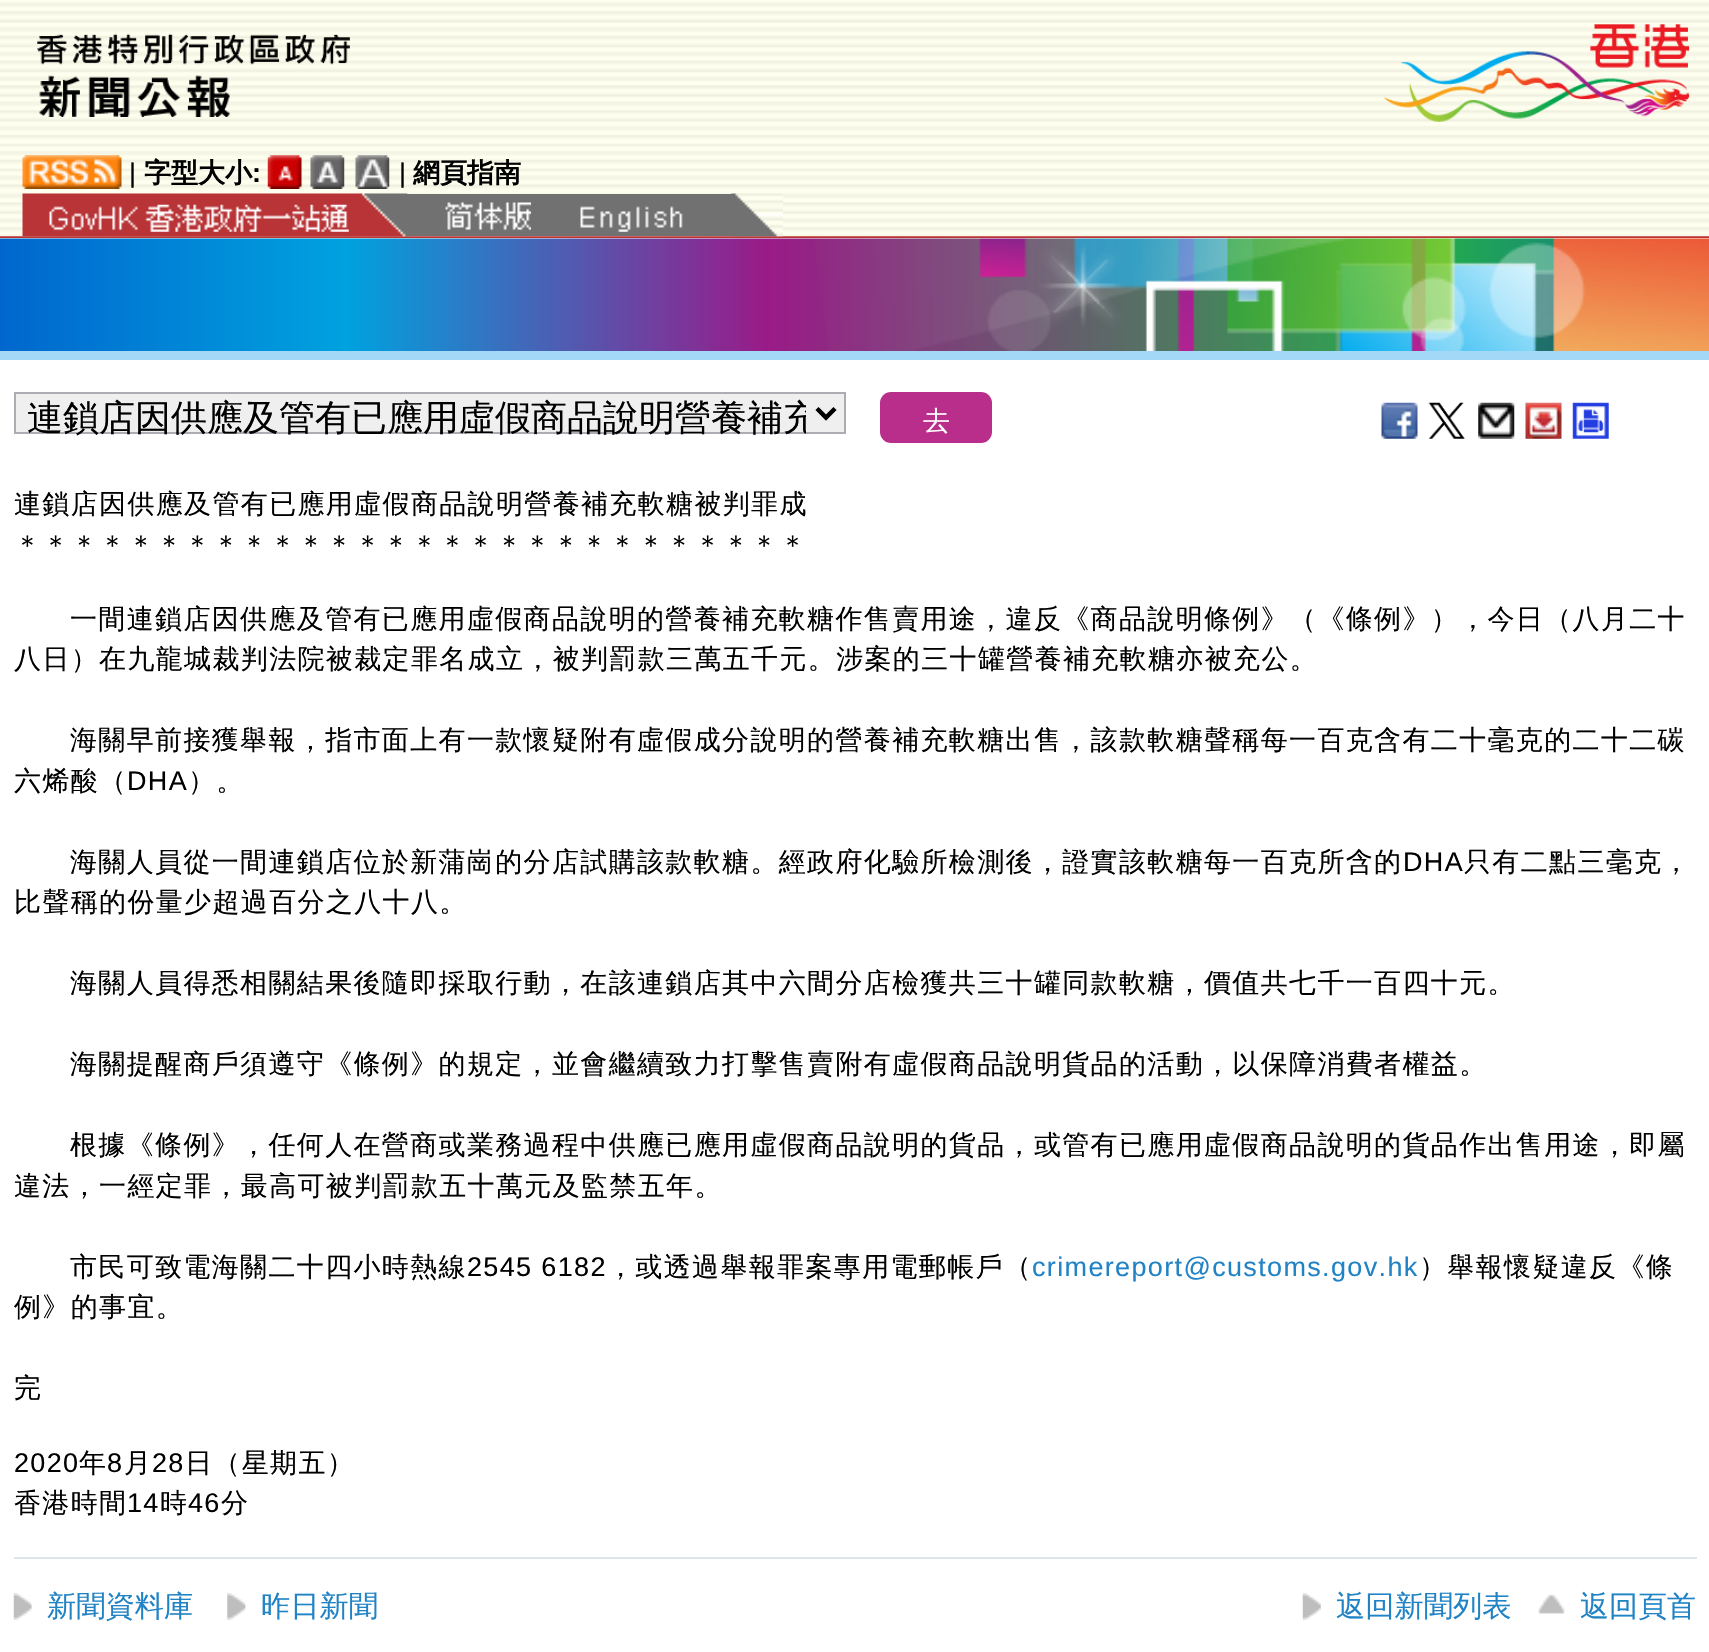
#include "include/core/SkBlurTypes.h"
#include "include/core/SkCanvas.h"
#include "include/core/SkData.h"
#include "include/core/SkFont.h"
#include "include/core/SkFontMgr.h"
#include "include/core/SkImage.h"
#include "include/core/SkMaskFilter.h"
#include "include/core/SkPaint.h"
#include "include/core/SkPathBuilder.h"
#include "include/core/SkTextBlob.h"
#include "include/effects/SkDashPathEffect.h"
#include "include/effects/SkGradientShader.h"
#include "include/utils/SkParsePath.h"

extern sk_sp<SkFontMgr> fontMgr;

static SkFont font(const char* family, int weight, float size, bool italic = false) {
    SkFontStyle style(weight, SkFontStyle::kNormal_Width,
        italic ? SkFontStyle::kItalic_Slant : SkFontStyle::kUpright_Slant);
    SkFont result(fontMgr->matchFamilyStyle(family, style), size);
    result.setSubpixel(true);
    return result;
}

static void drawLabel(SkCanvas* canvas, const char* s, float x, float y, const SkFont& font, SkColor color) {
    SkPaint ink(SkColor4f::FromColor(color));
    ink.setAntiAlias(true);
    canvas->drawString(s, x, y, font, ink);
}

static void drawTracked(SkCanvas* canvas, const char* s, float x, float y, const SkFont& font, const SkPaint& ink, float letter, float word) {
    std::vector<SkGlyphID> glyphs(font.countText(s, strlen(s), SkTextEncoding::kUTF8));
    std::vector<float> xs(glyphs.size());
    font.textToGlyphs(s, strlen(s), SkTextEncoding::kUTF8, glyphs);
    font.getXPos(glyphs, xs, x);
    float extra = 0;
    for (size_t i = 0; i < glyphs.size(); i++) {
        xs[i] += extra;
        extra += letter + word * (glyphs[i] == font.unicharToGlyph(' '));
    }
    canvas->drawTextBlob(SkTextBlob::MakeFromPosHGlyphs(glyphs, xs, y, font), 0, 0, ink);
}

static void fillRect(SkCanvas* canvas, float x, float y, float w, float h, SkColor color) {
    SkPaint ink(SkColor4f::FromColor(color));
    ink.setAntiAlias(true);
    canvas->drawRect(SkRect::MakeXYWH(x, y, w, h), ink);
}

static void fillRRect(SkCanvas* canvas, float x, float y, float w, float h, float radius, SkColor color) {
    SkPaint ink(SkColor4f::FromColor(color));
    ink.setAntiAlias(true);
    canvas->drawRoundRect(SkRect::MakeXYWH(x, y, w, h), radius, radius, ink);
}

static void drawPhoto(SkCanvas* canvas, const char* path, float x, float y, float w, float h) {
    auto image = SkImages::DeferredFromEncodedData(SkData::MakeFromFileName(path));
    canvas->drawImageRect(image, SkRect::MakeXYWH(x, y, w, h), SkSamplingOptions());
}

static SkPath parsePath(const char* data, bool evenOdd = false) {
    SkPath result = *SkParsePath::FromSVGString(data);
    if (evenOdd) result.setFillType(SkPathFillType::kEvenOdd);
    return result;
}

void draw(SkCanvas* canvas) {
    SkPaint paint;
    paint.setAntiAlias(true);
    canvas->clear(0xFFFFFFFF);
    drawPhoto(canvas, "assets/img1.png", 0, 0, 1709, 239);
    fillRect(canvas, 0, 237, 1709, 1, 0xFFBB3333);
    fillRect(canvas, 0, 236, 1709, 1, 0xFFC9635F);
    drawPhoto(canvas, "assets/img2.png", 37, 33, 313, 84);
    drawPhoto(canvas, "assets/img3.png", 1383, 24, 307, 98);
    drawPhoto(canvas, "assets/img4.png", 22, 155, 100, 34);
    SkFont font1 = font("Liberation Sans", 400, 27);
    drawLabel(canvas, "|", 129, 182, font1, 0xFF000000);
    SkFont font2 = font("WenQuanYi Zen Hei", 700, 27);
    drawLabel(canvas, "字型大小", 144, 182, font2, 0xFF000000);
    SkFont font3 = font("Liberation Sans", 700, 27);
    drawLabel(canvas, ":", 252, 182, font3, 0xFF000000);
    drawPhoto(canvas, "assets/img5.png", 267, 155, 35, 34);
    drawPhoto(canvas, "assets/img6.png", 310, 155, 35, 34);
    drawPhoto(canvas, "assets/img7.png", 355, 155, 35, 34);
    drawLabel(canvas, "|", 399, 182, font1, 0xFF000000);
    drawLabel(canvas, "網頁指南", 413, 182, font2, 0xFF000000);
    fillRect(canvas, 407, 194, 325, 42, 0xFF717171);
    drawPhoto(canvas, "assets/img8.png", 22, 193, 386, 44);
    drawPhoto(canvas, "assets/img9.png", 49, 204, 300, 28);
    drawPhoto(canvas, "assets/img10.png", 445, 202, 86, 29);
    drawPhoto(canvas, "assets/img11.png", 731, 193, 52, 44);
    drawPhoto(canvas, "assets/img12.png", 580, 206, 103, 26);
    drawPhoto(canvas, "assets/img13.png", 0, 238, 1709, 113);
    fillRect(canvas, 0, 351, 1709, 9, 0xFFA3D8F7);
    paint.setColor(0xFFEFEFEF);
    canvas->drawRect(SkRect::MakeXYWH(15, 393, 830, 40), paint);
    paint.setStroke(true);
    paint.setStrokeWidth(2);
    paint.setColor(0xFFABADB3);
    canvas->drawRect(SkRect::MakeXYWH(15, 393, 830, 40), paint);
    paint.setStrokeWidth(4.5f);
    paint.setColor(0xFF000000);
    canvas->drawPath(parsePath("M817 408.5L826 417.5L835 408.5"), paint);
    canvas->save();
    canvas->clipRect(SkRect::MakeXYWH(27, 396, 779, 43));
    SkFont font4 = font("WenQuanYi Zen Hei", 500, 36);
    drawLabel(canvas, "連鎖店因供應及管有已應用虛假商品說明營養補充", 27, 430, font4, 0xFF000000);
    canvas->restore();
    fillRRect(canvas, 880, 392, 112, 51, 11, 0xFFB82E8A);
    SkFont font5 = font("WenQuanYi Zen Hei", 500, 27);
    drawLabel(canvas, "去", 923, 430, font5, 0xFFFFFFFF);
    drawPhoto(canvas, "assets/img14.png", 1381, 402, 37, 37);
    drawPhoto(canvas, "assets/img15.png", 1428, 402, 37, 37);
    drawPhoto(canvas, "assets/img16.png", 1478, 402, 37, 37);
    drawPhoto(canvas, "assets/img17.png", 1525, 402, 37, 37);
    drawPhoto(canvas, "assets/img18.png", 1572, 402, 37, 37);
    paint.setStroke(false);
    drawTracked(canvas, "連鎖店因供應及管有已應用虛假商品說明營養補充軟糖被判罪成", 14, 513, font5, paint, 1.35f, 0);
    drawTracked(canvas, "＊＊＊＊＊＊＊＊＊＊＊＊＊＊＊", 14, 554, font5, paint, 1.35f, 0);
    drawTracked(canvas, "＊＊＊＊＊＊＊＊＊＊＊＊＊", 439, 554, font5, paint, 1.35f, 0);
    drawTracked(canvas, "一間連鎖店因供應及管有已應用虛假商品說明的營養補充軟糖作售賣用途，違反《商品說明條例》（《條例》），今日（八月二十", 70, 628, font5, paint, 1.35f, 0);
    drawTracked(canvas, "八日）在九龍城裁判法院被裁定罪名成立，被判罰款三萬五千元。涉案的三十罐營養補充軟糖亦被充公。", 14, 668, font5, paint, 1.35f, 0);
    drawTracked(canvas, "海關早前接獲舉報，指市面上有一款懷疑附有虛假成分說明的營養補充軟糖出售，該款軟糖聲稱每一百克含有二十毫克的二十二碳", 70, 749, font5, paint, 1.35f, 0);
    drawTracked(canvas, "六烯酸（", 14, 790, font5, paint, 1.35f, 0);
    drawTracked(canvas, "DHA", 127, 790, font1, paint, 1.35f, 0);
    drawTracked(canvas, "）。", 188, 790, font5, paint, 1.35f, 0);
    drawTracked(canvas, "海關人員從一間連鎖店位於新蒲崗的分店試購該款軟糖。經政府化驗所檢測後，證實該軟糖每一百克所含的", 70, 871, font5, paint, 1.35f, 0);
    drawTracked(canvas, "DHA", 1403, 871, font1, paint, 1.35f, 0);
    drawTracked(canvas, "只有二點三毫克，", 1464, 871, font5, paint, 1.35f, 0);
    drawTracked(canvas, "比聲稱的份量少超過百分之八十八。", 14, 911, font5, paint, 1.35f, 0);
    drawTracked(canvas, "海關人員得悉相關結果後隨即採取行動，在該連鎖店其中六間分店檢獲共三十罐同款軟糖，價值共七千一百四十元。", 70, 992, font5, paint, 1.35f, 0);
    drawTracked(canvas, "海關提醒商戶須遵守《條例》的規定，並會繼續致力打擊售賣附有虛假商品說明貨品的活動，以保障消費者權益。", 70, 1073, font5, paint, 1.35f, 0);
    drawTracked(canvas, "根據《條例》，任何人在營商或業務過程中供應已應用虛假商品說明的貨品，或管有已應用虛假商品說明的貨品作出售用途，即屬", 70, 1154, font5, paint, 1.35f, 0);
    drawTracked(canvas, "違法，一經定罪，最高可被判罰款五十萬元及監禁五年。", 14, 1195, font5, paint, 1.35f, 0);
    drawTracked(canvas, "市民可致電海關二十四小時熱線", 70, 1276, font5, paint, 1.35f, 0);
    drawTracked(canvas, "2545 6182", 467, 1276, font1, paint, 1.35f, 0);
    drawTracked(canvas, "，或透過舉報罪案專用電郵帳戶（", 607, 1276, font5, paint, 1.35f, 0);
    paint.setColor(0xFF2083C5);
    drawTracked(canvas, "crimereport@customs.gov.hk", 1032, 1276, font1, paint, 1.35f, 0);
    paint.setColor(0xFF000000);
    drawTracked(canvas, "）舉報懷疑違反《條", 1419, 1276, font5, paint, 1.35f, 0);
    drawTracked(canvas, "例》的事宜。", 14, 1316, font5, paint, 1.35f, 0);
    drawTracked(canvas, "完", 14, 1397, font5, paint, 1.35f, 0);
    drawTracked(canvas, "2020", 14, 1472, font1, paint, 1.35f, 0);
    drawTracked(canvas, "年", 79, 1472, font5, paint, 1.35f, 0);
    drawTracked(canvas, "8", 107, 1472, font1, paint, 1.35f, 0);
    drawTracked(canvas, "月", 124, 1472, font5, paint, 1.35f, 0);
    drawTracked(canvas, "28", 152, 1472, font1, paint, 1.35f, 0);
    drawTracked(canvas, "日（星期五）", 185, 1472, font5, paint, 1.35f, 0);
    drawTracked(canvas, "香港時間", 14, 1512, font5, paint, 1.35f, 0);
    drawTracked(canvas, "14", 127, 1512, font1, paint, 1.35f, 0);
    drawTracked(canvas, "時", 160, 1512, font5, paint, 1.35f, 0);
    drawTracked(canvas, "46", 188, 1512, font1, paint, 1.35f, 0);
    drawTracked(canvas, "分", 221, 1512, font5, paint, 1.35f, 0);
    fillRect(canvas, 14, 1557, 1683, 2, 0xFFDCE7E9);
    drawPhoto(canvas, "assets/img19.png", 13, 1593, 19, 27);
    SkFont font6 = font("WenQuanYi Zen Hei", 500, 29.25f);
    drawLabel(canvas, "新聞資料庫", 47, 1616, font6, 0xFF2083C5);
    drawPhoto(canvas, "assets/img20.png", 227, 1593, 19, 27);
    drawLabel(canvas, "昨日新聞", 261, 1616, font6, 0xFF2083C5);
    drawPhoto(canvas, "assets/img21.png", 1302, 1593, 19, 27);
    drawLabel(canvas, "返回新聞列表", 1336, 1616, font6, 0xFF2083C5);
    drawPhoto(canvas, "assets/img22.png", 1538, 1594, 27, 20);
    SkFont font7 = font("WenQuanYi Zen Hei", 500, 29);
    drawLabel(canvas, "返回頁首", 1580, 1616, font7, 0xFF2083C5);
}
